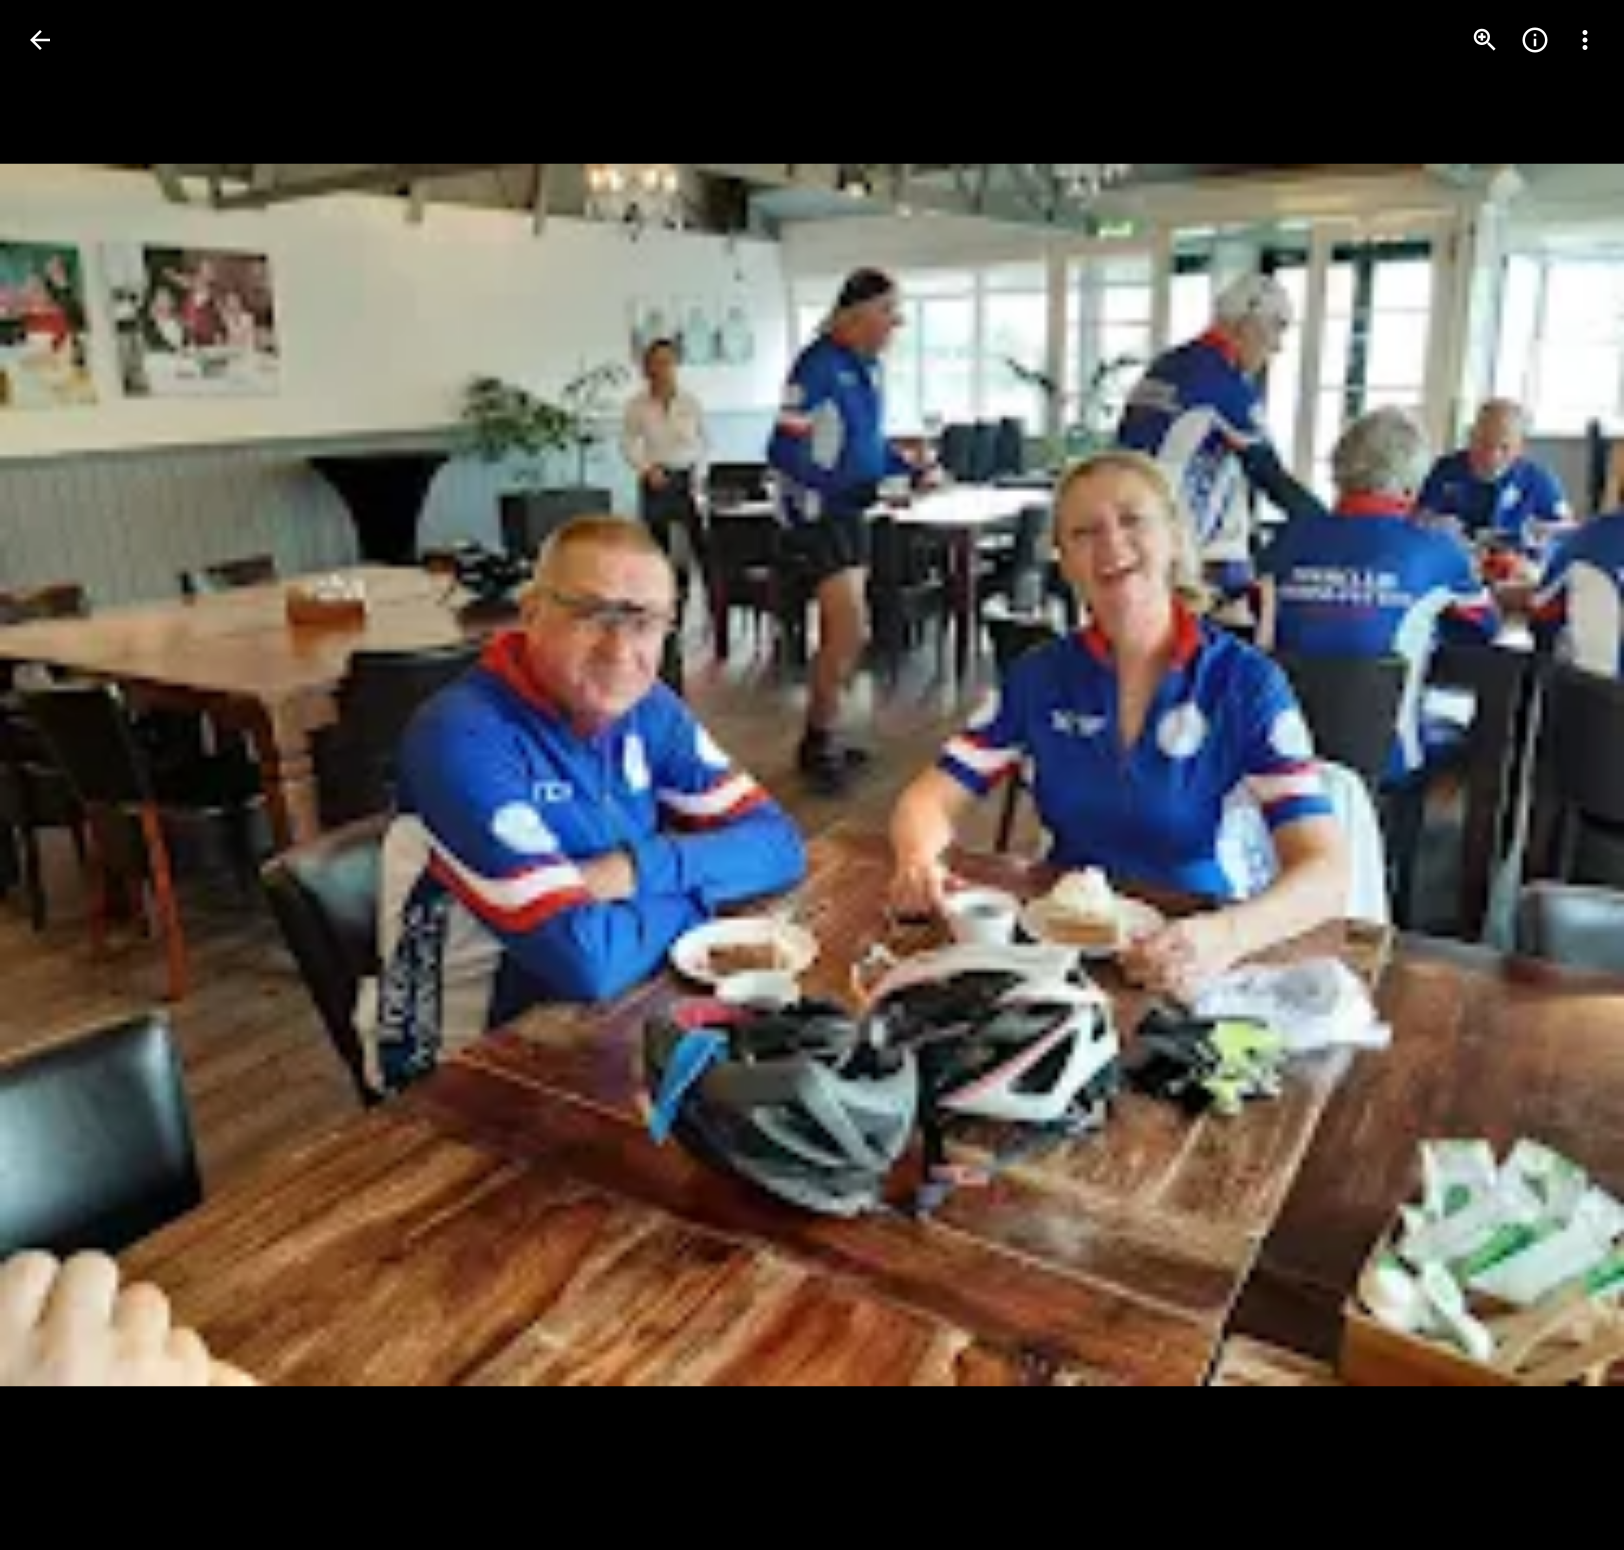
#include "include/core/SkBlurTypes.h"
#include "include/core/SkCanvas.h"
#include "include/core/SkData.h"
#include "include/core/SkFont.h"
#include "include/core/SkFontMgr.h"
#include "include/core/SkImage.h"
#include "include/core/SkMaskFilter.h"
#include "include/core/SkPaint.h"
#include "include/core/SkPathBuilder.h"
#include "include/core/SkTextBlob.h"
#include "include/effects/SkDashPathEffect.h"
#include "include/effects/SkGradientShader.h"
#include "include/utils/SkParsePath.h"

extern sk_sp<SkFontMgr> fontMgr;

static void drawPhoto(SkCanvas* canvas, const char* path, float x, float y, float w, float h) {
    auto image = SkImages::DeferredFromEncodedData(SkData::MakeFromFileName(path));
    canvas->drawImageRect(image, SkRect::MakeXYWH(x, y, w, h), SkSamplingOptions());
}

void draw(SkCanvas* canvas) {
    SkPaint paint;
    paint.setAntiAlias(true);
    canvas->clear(0xFF000000);
    drawPhoto(canvas, "assets/img1.png", 30, 30, 20, 20);
    drawPhoto(canvas, "assets/img2.png", 1473, 28, 23, 23);
    drawPhoto(canvas, "assets/img3.png", 1522, 27, 26, 26);
    drawPhoto(canvas, "assets/img4.png", 1582, 30, 6, 20);
    drawPhoto(canvas, "assets/img5.png", 0, 163, 1624, 1224);
}
